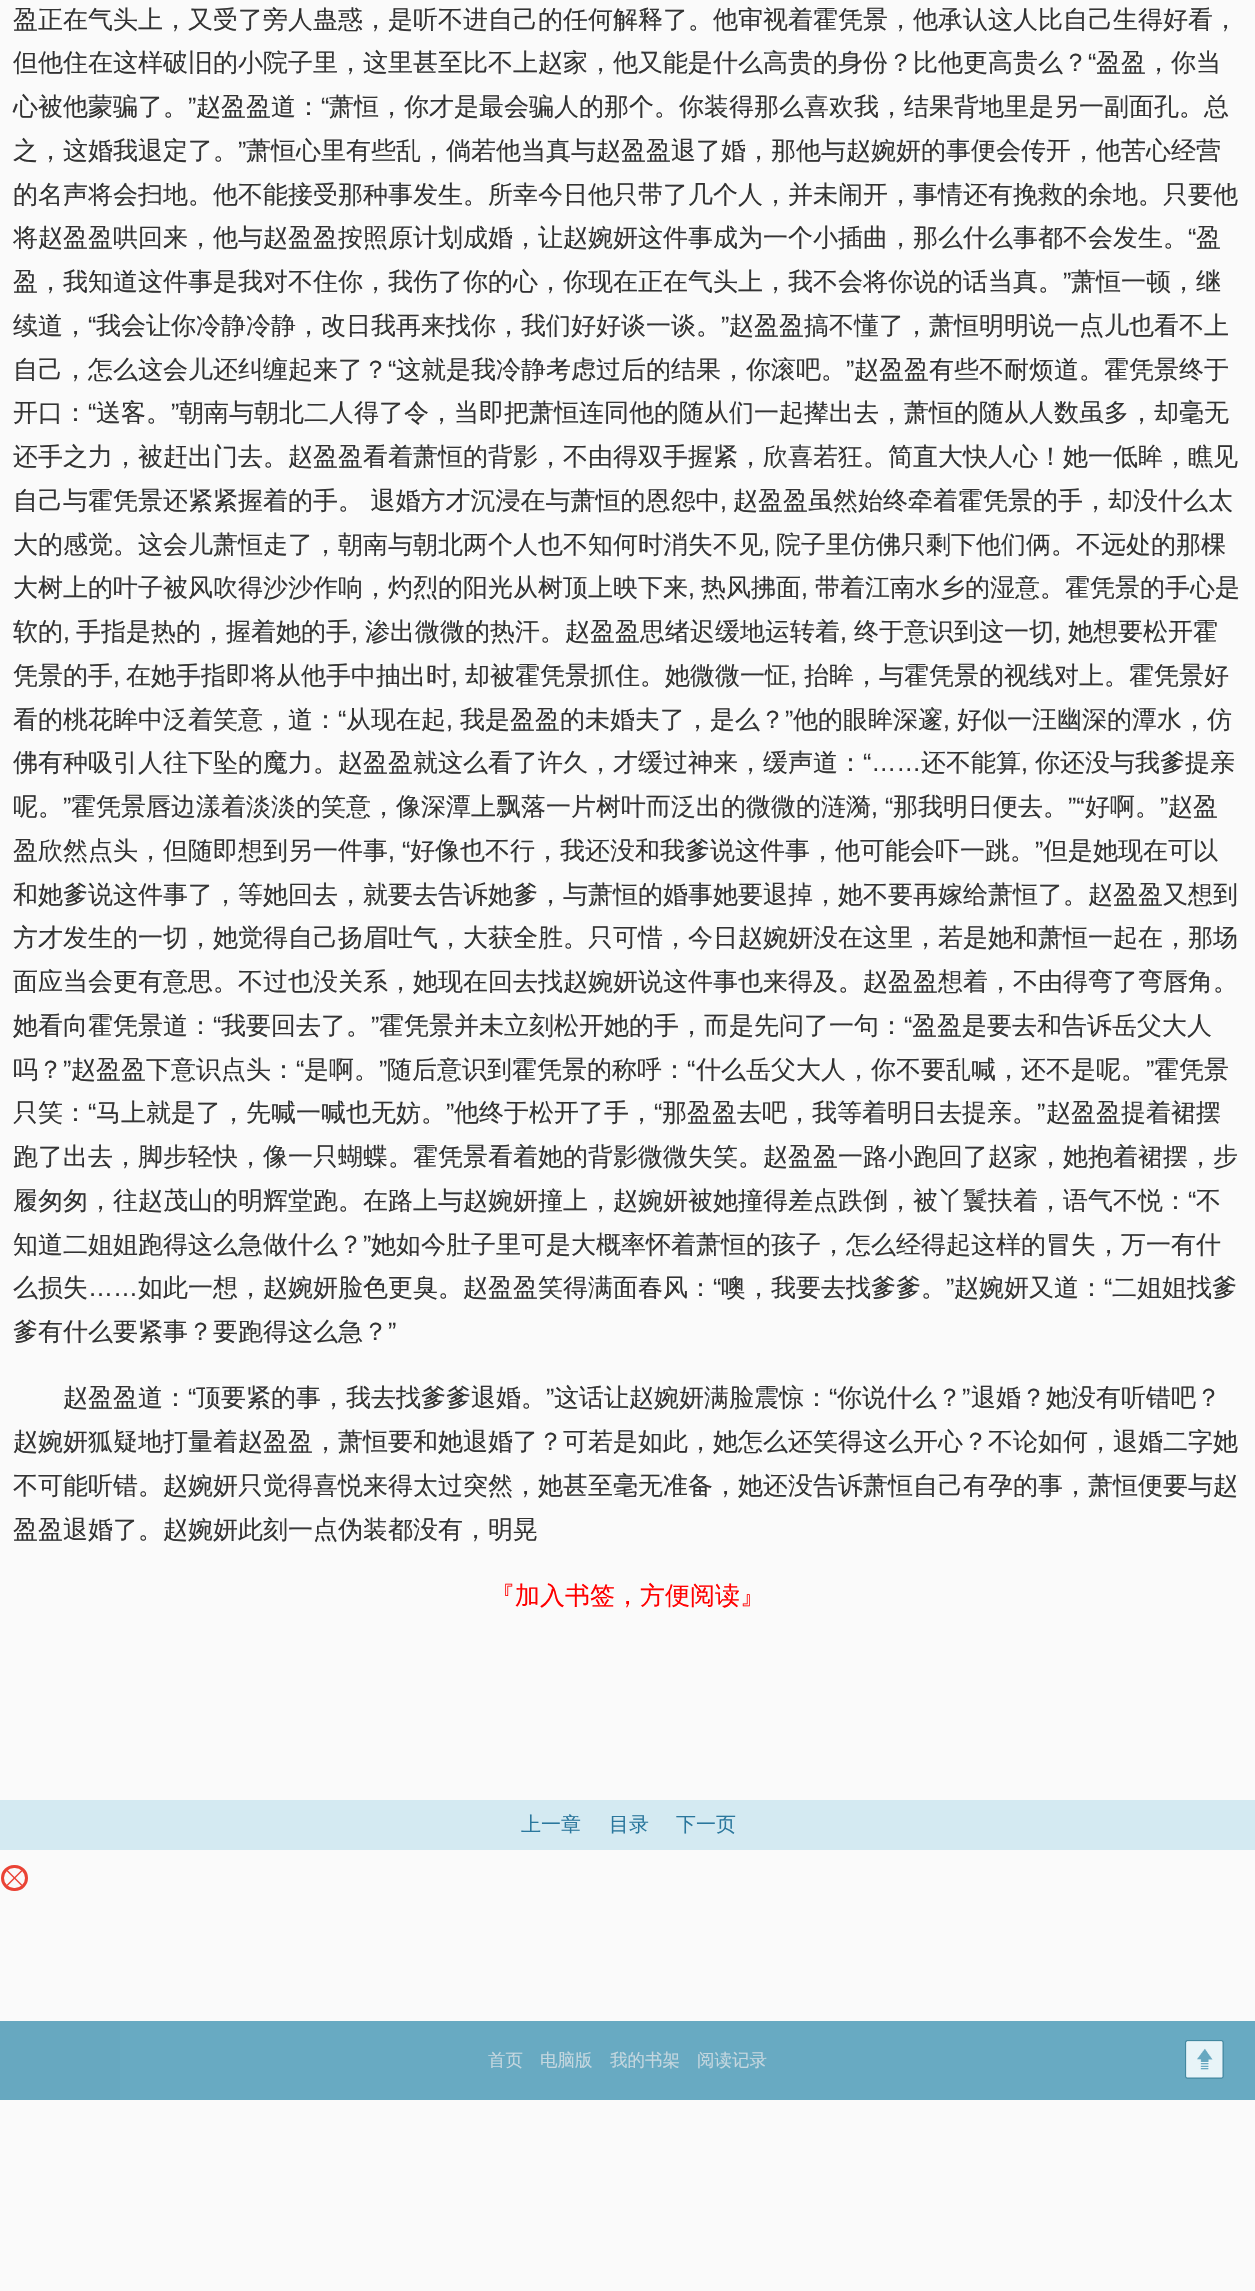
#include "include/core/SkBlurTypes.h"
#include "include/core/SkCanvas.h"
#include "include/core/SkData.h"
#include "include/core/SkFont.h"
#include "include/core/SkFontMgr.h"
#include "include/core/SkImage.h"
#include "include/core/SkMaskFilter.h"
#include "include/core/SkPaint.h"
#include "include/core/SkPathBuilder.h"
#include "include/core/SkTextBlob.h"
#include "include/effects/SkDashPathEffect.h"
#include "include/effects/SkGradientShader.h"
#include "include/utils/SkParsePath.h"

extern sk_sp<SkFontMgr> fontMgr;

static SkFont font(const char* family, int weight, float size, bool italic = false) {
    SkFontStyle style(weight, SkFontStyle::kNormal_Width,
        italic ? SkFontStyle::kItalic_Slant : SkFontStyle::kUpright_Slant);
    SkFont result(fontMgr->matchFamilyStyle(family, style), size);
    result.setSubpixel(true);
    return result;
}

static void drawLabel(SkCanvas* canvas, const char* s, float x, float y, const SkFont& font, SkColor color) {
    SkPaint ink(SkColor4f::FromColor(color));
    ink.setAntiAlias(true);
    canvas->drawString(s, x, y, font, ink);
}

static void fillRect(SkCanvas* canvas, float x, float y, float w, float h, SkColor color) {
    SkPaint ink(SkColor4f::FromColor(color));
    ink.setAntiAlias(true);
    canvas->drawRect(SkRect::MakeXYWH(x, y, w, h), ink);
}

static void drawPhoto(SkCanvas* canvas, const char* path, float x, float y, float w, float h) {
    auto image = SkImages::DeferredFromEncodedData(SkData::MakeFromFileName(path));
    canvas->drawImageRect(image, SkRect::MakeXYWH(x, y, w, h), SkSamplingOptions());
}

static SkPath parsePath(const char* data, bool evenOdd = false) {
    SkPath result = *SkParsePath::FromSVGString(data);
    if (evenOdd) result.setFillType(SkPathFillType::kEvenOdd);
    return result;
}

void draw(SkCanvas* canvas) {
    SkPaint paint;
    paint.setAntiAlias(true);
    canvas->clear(0xFFFAFAFA);
    SkFont font1 = font("WenQuanYi Zen Hei", 500, 25);
    drawLabel(canvas, "盈正在气头上，又受了旁人蛊惑，是听不进自己的任何解释了。他审视着霍凭景，他承认这人比自己生得好看，", 13, 28, font1, 0xFF333333);
    drawLabel(canvas, "但他住在这样破旧的小院子里，这里甚至比不上赵家，他又能是什么高贵的身份？比他更高贵么？", 13, 71, font1, 0xFF333333);
    SkFont font2 = font("Liberation Sans", 400, 25);
    drawLabel(canvas, "“", 1088, 71, font2, 0xFF333333);
    drawLabel(canvas, "盈盈，你当", 1096, 71, font1, 0xFF333333);
    drawLabel(canvas, "心被他蒙骗了。", 13, 115, font1, 0xFF333333);
    drawLabel(canvas, "”", 188, 115, font2, 0xFF333333);
    drawLabel(canvas, "赵盈盈道：", 196, 115, font1, 0xFF333333);
    drawLabel(canvas, "“", 321, 115, font2, 0xFF333333);
    drawLabel(canvas, "萧恒，你才是最会骗人的那个。你装得那么喜欢我，结果背地里是另一副面孔。总", 329, 115, font1, 0xFF333333);
    drawLabel(canvas, "之，这婚我退定了。", 13, 159, font1, 0xFF333333);
    drawLabel(canvas, "”", 238, 159, font2, 0xFF333333);
    drawLabel(canvas, "萧恒心里有些乱，倘若他当真与赵盈盈退了婚，那他与赵婉妍的事便会传开，他苦心经营", 246, 159, font1, 0xFF333333);
    drawLabel(canvas, "的名声将会扫地。他不能接受那种事发生。所幸今日他只带了几个人，并未闹开，事情还有挽救的余地。只要他", 13, 203, font1, 0xFF333333);
    drawLabel(canvas, "将赵盈盈哄回来，他与赵盈盈按照原计划成婚，让赵婉妍这件事成为一个小插曲，那么什么事都不会发生。", 13, 246, font1, 0xFF333333);
    drawLabel(canvas, "“", 1188, 246, font2, 0xFF333333);
    drawLabel(canvas, "盈", 1196, 246, font1, 0xFF333333);
    drawLabel(canvas, "盈，我知道这件事是我对不住你，我伤了你的心，你现在正在气头上，我不会将你说的话当真。", 13, 290, font1, 0xFF333333);
    drawLabel(canvas, "”", 1063, 290, font2, 0xFF333333);
    drawLabel(canvas, "萧恒一顿，继", 1071, 290, font1, 0xFF333333);
    drawLabel(canvas, "续道，", 13, 334, font1, 0xFF333333);
    drawLabel(canvas, "“", 88, 334, font2, 0xFF333333);
    drawLabel(canvas, "我会让你冷静冷静，改日我再来找你，我们好好谈一谈。", 96, 334, font1, 0xFF333333);
    drawLabel(canvas, "”", 721, 334, font2, 0xFF333333);
    drawLabel(canvas, "赵盈盈搞不懂了，萧恒明明说一点儿也看不上", 729, 334, font1, 0xFF333333);
    drawLabel(canvas, "自己，怎么这会儿还纠缠起来了？", 13, 378, font1, 0xFF333333);
    drawLabel(canvas, "“", 388, 378, font2, 0xFF333333);
    drawLabel(canvas, "这就是我冷静考虑过后的结果，你滚吧。", 396, 378, font1, 0xFF333333);
    drawLabel(canvas, "”", 846, 378, font2, 0xFF333333);
    drawLabel(canvas, "赵盈盈有些不耐烦道。霍凭景终于", 854, 378, font1, 0xFF333333);
    drawLabel(canvas, "开口：", 13, 421, font1, 0xFF333333);
    drawLabel(canvas, "“", 88, 421, font2, 0xFF333333);
    drawLabel(canvas, "送客。", 96, 421, font1, 0xFF333333);
    drawLabel(canvas, "”", 171, 421, font2, 0xFF333333);
    drawLabel(canvas, "朝南与朝北二人得了令，当即把萧恒连同他的随从们一起撵出去，萧恒的随从人数虽多，却毫无", 179, 421, font1, 0xFF333333);
    drawLabel(canvas, "还手之力，被赶出门去。赵盈盈看着萧恒的背影，不由得双手握紧，欣喜若狂。简直大快人心！她一低眸，瞧见", 13, 465, font1, 0xFF333333);
    drawLabel(canvas, "自己与霍凭景还紧紧握着的手。 退婚方才沉浸在与萧恒的恩怨中", 13, 509, font1, 0xFF333333);
    drawLabel(canvas, ",", 720, 509, font2, 0xFF333333);
    drawLabel(canvas, "赵盈盈虽然始终牵着霍凭景的手，却没什么太", 733, 509, font1, 0xFF333333);
    drawLabel(canvas, "大的感觉。这会儿萧恒走了，朝南与朝北两个人也不知何时消失不见", 13, 553, font1, 0xFF333333);
    drawLabel(canvas, ",", 763, 553, font2, 0xFF333333);
    drawLabel(canvas, "院子里仿佛只剩下他们俩。不远处的那棵", 776, 553, font1, 0xFF333333);
    drawLabel(canvas, "大树上的叶子被风吹得沙沙作响，灼烈的阳光从树顶上映下来", 13, 596, font1, 0xFF333333);
    drawLabel(canvas, ",", 688, 596, font2, 0xFF333333);
    drawLabel(canvas, "热风拂面", 701, 596, font1, 0xFF333333);
    drawLabel(canvas, ",", 801, 596, font2, 0xFF333333);
    drawLabel(canvas, "带着江南水乡的湿意。霍凭景的手心是", 815, 596, font1, 0xFF333333);
    drawLabel(canvas, "软的", 13, 640, font1, 0xFF333333);
    drawLabel(canvas, ",", 63, 640, font2, 0xFF333333);
    drawLabel(canvas, "手指是热的，握着她的手", 76, 640, font1, 0xFF333333);
    drawLabel(canvas, ",", 351, 640, font2, 0xFF333333);
    drawLabel(canvas, "渗出微微的热汗。赵盈盈思绪迟缓地运转着", 365, 640, font1, 0xFF333333);
    drawLabel(canvas, ",", 840, 640, font2, 0xFF333333);
    drawLabel(canvas, "终于意识到这一切", 854, 640, font1, 0xFF333333);
    drawLabel(canvas, ",", 1054, 640, font2, 0xFF333333);
    drawLabel(canvas, "她想要松开霍", 1068, 640, font1, 0xFF333333);
    drawLabel(canvas, "凭景的手", 13, 684, font1, 0xFF333333);
    drawLabel(canvas, ",", 113, 684, font2, 0xFF333333);
    drawLabel(canvas, "在她手指即将从他手中抽出时", 126, 684, font1, 0xFF333333);
    drawLabel(canvas, ",", 451, 684, font2, 0xFF333333);
    drawLabel(canvas, "却被霍凭景抓住。她微微一怔", 465, 684, font1, 0xFF333333);
    drawLabel(canvas, ",", 790, 684, font2, 0xFF333333);
    drawLabel(canvas, "抬眸，与霍凭景的视线对上。霍凭景好", 804, 684, font1, 0xFF333333);
    drawLabel(canvas, "看的桃花眸中泛着笑意，道：", 13, 728, font1, 0xFF333333);
    drawLabel(canvas, "“", 338, 728, font2, 0xFF333333);
    drawLabel(canvas, "从现在起", 346, 728, font1, 0xFF333333);
    drawLabel(canvas, "我是盈盈的未婚夫了，是么？", 460, 728, font1, 0xFF333333);
    drawLabel(canvas, "”", 785, 728, font2, 0xFF333333);
    drawLabel(canvas, "他的眼眸深邃", 793, 728, font1, 0xFF333333);
    drawLabel(canvas, "好似一汪幽深的潭水，仿", 957, 728, font1, 0xFF333333);
    drawLabel(canvas, ",", 446, 728, font2, 0xFF333333);
    drawLabel(canvas, ",", 943, 728, font2, 0xFF333333);
    drawLabel(canvas, "佛有种吸引人往下坠的魔力。赵盈盈就这么看了许久，才缓过神来，缓声道：", 13, 771, font1, 0xFF333333);
    drawLabel(canvas, "“……", 863, 771, font2, 0xFF333333);
    drawLabel(canvas, "还不能算", 921, 771, font1, 0xFF333333);
    drawLabel(canvas, ",", 1021, 771, font2, 0xFF333333);
    drawLabel(canvas, "你还没与我爹提亲", 1035, 771, font1, 0xFF333333);
    drawLabel(canvas, "呢。", 13, 815, font1, 0xFF333333);
    drawLabel(canvas, "”", 63, 815, font2, 0xFF333333);
    drawLabel(canvas, "霍凭景唇边漾着淡淡的笑意，像深潭上飘落一片树叶而泛出的微微的涟漪", 71, 815, font1, 0xFF333333);
    drawLabel(canvas, ", “", 871, 815, font2, 0xFF333333);
    drawLabel(canvas, "那我明日便去。", 893, 815, font1, 0xFF333333);
    drawLabel(canvas, "”“", 1068, 815, font2, 0xFF333333);
    drawLabel(canvas, "好啊。", 1085, 815, font1, 0xFF333333);
    drawLabel(canvas, "”", 1160, 815, font2, 0xFF333333);
    drawLabel(canvas, "赵盈", 1168, 815, font1, 0xFF333333);
    drawLabel(canvas, "盈欣然点头，但随即想到另一件事", 13, 859, font1, 0xFF333333);
    drawLabel(canvas, ", “", 388, 859, font2, 0xFF333333);
    drawLabel(canvas, "好像也不行，我还没和我爹说这件事，他可能会吓一跳。", 410, 859, font1, 0xFF333333);
    drawLabel(canvas, "”", 1035, 859, font2, 0xFF333333);
    drawLabel(canvas, "但是她现在可以", 1043, 859, font1, 0xFF333333);
    drawLabel(canvas, "和她爹说这件事了，等她回去，就要去告诉她爹，与萧恒的婚事她要退掉，她不要再嫁给萧恒了。赵盈盈又想到", 13, 903, font1, 0xFF333333);
    drawLabel(canvas, "方才发生的一切，她觉得自己扬眉吐气，大获全胜。只可惜，今日赵婉妍没在这里，若是她和萧恒一起在，那场", 13, 946, font1, 0xFF333333);
    drawLabel(canvas, "面应当会更有意思。不过也没关系，她现在回去找赵婉妍说这件事也来得及。赵盈盈想着，不由得弯了弯唇角。", 13, 990, font1, 0xFF333333);
    drawLabel(canvas, "她看向霍凭景道：", 13, 1034, font1, 0xFF333333);
    drawLabel(canvas, "“", 213, 1034, font2, 0xFF333333);
    drawLabel(canvas, "我要回去了。", 221, 1034, font1, 0xFF333333);
    drawLabel(canvas, "”", 371, 1034, font2, 0xFF333333);
    drawLabel(canvas, "霍凭景并未立刻松开她的手，而是先问了一句：", 379, 1034, font1, 0xFF333333);
    drawLabel(canvas, "“", 904, 1034, font2, 0xFF333333);
    drawLabel(canvas, "盈盈是要去和告诉岳父大人", 912, 1034, font1, 0xFF333333);
    drawLabel(canvas, "吗？", 13, 1078, font1, 0xFF333333);
    drawLabel(canvas, "”", 63, 1078, font2, 0xFF333333);
    drawLabel(canvas, "赵盈盈下意识点头：", 71, 1078, font1, 0xFF333333);
    drawLabel(canvas, "“", 296, 1078, font2, 0xFF333333);
    drawLabel(canvas, "是啊。", 304, 1078, font1, 0xFF333333);
    drawLabel(canvas, "”", 379, 1078, font2, 0xFF333333);
    drawLabel(canvas, "随后意识到霍凭景的称呼：", 387, 1078, font1, 0xFF333333);
    drawLabel(canvas, "“", 687, 1078, font2, 0xFF333333);
    drawLabel(canvas, "什么岳父大人，你不要乱喊，还不是呢。", 696, 1078, font1, 0xFF333333);
    drawLabel(canvas, "”", 1146, 1078, font2, 0xFF333333);
    drawLabel(canvas, "霍凭景", 1154, 1078, font1, 0xFF333333);
    drawLabel(canvas, "只笑：", 13, 1121, font1, 0xFF333333);
    drawLabel(canvas, "“", 88, 1121, font2, 0xFF333333);
    drawLabel(canvas, "马上就是了，先喊一喊也无妨。", 96, 1121, font1, 0xFF333333);
    drawLabel(canvas, "”", 446, 1121, font2, 0xFF333333);
    drawLabel(canvas, "他终于松开了手，", 454, 1121, font1, 0xFF333333);
    drawLabel(canvas, "“", 654, 1121, font2, 0xFF333333);
    drawLabel(canvas, "那盈盈去吧，我等着明日去提亲。", 662, 1121, font1, 0xFF333333);
    drawLabel(canvas, "”", 1037, 1121, font2, 0xFF333333);
    drawLabel(canvas, "赵盈盈提着裙摆", 1046, 1121, font1, 0xFF333333);
    drawLabel(canvas, "跑了出去，脚步轻快，像一只蝴蝶。霍凭景看着她的背影微微失笑。赵盈盈一路小跑回了赵家，她抱着裙摆，步", 13, 1165, font1, 0xFF333333);
    drawLabel(canvas, "履匆匆，往赵茂山的明辉堂跑。在路上与赵婉妍撞上，赵婉妍被她撞得差点跌倒，被丫鬟扶着，语气不悦：", 13, 1209, font1, 0xFF333333);
    drawLabel(canvas, "“", 1188, 1209, font2, 0xFF333333);
    drawLabel(canvas, "不", 1196, 1209, font1, 0xFF333333);
    drawLabel(canvas, "知道二姐姐跑得这么急做什么？", 13, 1253, font1, 0xFF333333);
    drawLabel(canvas, "”", 363, 1253, font2, 0xFF333333);
    drawLabel(canvas, "她如今肚子里可是大概率怀着萧恒的孩子，怎么经得起这样的冒失，万一有什", 371, 1253, font1, 0xFF333333);
    drawLabel(canvas, "么损失", 13, 1296, font1, 0xFF333333);
    drawLabel(canvas, "如此一想，赵婉妍脸色更臭。赵盈盈笑得满面春风：", 138, 1296, font1, 0xFF333333);
    drawLabel(canvas, "“", 713, 1296, font2, 0xFF333333);
    drawLabel(canvas, "噢，我要去找爹爹。", 721, 1296, font1, 0xFF333333);
    drawLabel(canvas, "”", 946, 1296, font2, 0xFF333333);
    drawLabel(canvas, "赵婉妍又道：", 954, 1296, font1, 0xFF333333);
    drawLabel(canvas, "“", 1104, 1296, font2, 0xFF333333);
    drawLabel(canvas, "二姐姐找爹", 1112, 1296, font1, 0xFF333333);
    drawLabel(canvas, "……", 88, 1296, font2, 0xFF333333);
    drawLabel(canvas, "爹有什么要紧事？要跑得这么急？", 13, 1340, font1, 0xFF333333);
    drawLabel(canvas, "”", 388, 1340, font2, 0xFF333333);
    drawLabel(canvas, "赵盈盈道：", 63, 1406, font1, 0xFF333333);
    drawLabel(canvas, "“", 188, 1406, font2, 0xFF333333);
    drawLabel(canvas, "顶要紧的事，我去找爹爹退婚。", 196, 1406, font1, 0xFF333333);
    drawLabel(canvas, "”", 546, 1406, font2, 0xFF333333);
    drawLabel(canvas, "这话让赵婉妍满脸震惊：", 554, 1406, font1, 0xFF333333);
    drawLabel(canvas, "“", 829, 1406, font2, 0xFF333333);
    drawLabel(canvas, "你说什么？", 837, 1406, font1, 0xFF333333);
    drawLabel(canvas, "”", 962, 1406, font2, 0xFF333333);
    drawLabel(canvas, "退婚？她没有听错吧？", 971, 1406, font1, 0xFF333333);
    drawLabel(canvas, "赵婉妍狐疑地打量着赵盈盈，萧恒要和她退婚了？可若是如此，她怎么还笑得这么开心？不论如何，退婚二字她", 13, 1450, font1, 0xFF333333);
    drawLabel(canvas, "不可能听错。赵婉妍只觉得喜悦来得太过突然，她甚至毫无准备，她还没告诉萧恒自己有孕的事，萧恒便要与赵", 13, 1494, font1, 0xFF333333);
    drawLabel(canvas, "盈盈退婚了。赵婉妍此刻一点伪装都没有，明晃", 13, 1538, font1, 0xFF333333);
    drawLabel(canvas, "『加入书签，方便阅读』", 490, 1604, font1, 0xFFFF0000);
    fillRect(canvas, 0, 1800, 1255, 50, 0xFFD4EAF2);
    SkFont font3 = font("WenQuanYi Zen Hei", 500, 20);
    drawLabel(canvas, "上一章", 521, 1831, font3, 0xFF2A779D);
    drawLabel(canvas, "目录", 609, 1831, font3, 0xFF2A779D);
    drawLabel(canvas, "下一页", 676, 1831, font3, 0xFF2A779D);
    paint.setStroke(true);
    paint.setStrokeWidth(3);
    paint.setColor(0xFFEA4335);
    canvas->drawRoundRect(SkRect::MakeXYWH(2.5f, 1866.5f, 24, 23), 11.5f, 11.5f, paint);
    paint.setStroke(false);
    canvas->drawPath(parsePath("M7.5 1870L22.5 1885L21.5 1886L6.5 1871Z"), paint);
    canvas->drawPath(parsePath("M6.5 1885L21.5 1870L22.5 1871L7.5 1886Z"), paint);
    fillRect(canvas, 120, 2021, 1135, 79, 0xFF68AAC2);
    fillRect(canvas, 0, 2021, 120, 79, 0xFF67A8C0);
    SkFont font4 = font("WenQuanYi Zen Hei", 500, 17.5f);
    drawLabel(canvas, "首页", 488, 2066, font4, 0xFFC5D7DF);
    drawLabel(canvas, "电脑版", 540, 2066, font4, 0xFFC5D7DF);
    drawLabel(canvas, "我的书架", 610, 2066, font4, 0xFFC5D7DF);
    drawLabel(canvas, "阅读记录", 697, 2066, font4, 0xFFC5D7DF);
    drawPhoto(canvas, "assets/img1.png", 1185, 2040, 39, 39);
}
